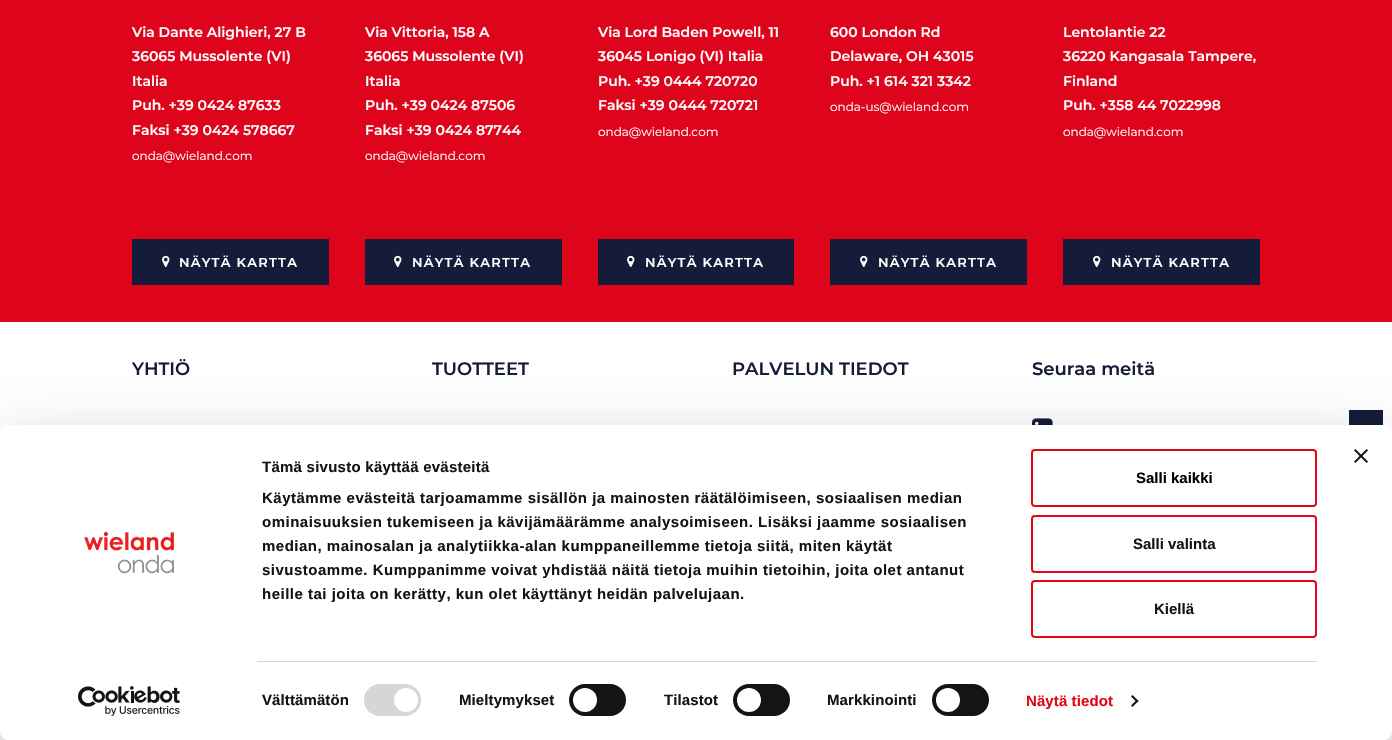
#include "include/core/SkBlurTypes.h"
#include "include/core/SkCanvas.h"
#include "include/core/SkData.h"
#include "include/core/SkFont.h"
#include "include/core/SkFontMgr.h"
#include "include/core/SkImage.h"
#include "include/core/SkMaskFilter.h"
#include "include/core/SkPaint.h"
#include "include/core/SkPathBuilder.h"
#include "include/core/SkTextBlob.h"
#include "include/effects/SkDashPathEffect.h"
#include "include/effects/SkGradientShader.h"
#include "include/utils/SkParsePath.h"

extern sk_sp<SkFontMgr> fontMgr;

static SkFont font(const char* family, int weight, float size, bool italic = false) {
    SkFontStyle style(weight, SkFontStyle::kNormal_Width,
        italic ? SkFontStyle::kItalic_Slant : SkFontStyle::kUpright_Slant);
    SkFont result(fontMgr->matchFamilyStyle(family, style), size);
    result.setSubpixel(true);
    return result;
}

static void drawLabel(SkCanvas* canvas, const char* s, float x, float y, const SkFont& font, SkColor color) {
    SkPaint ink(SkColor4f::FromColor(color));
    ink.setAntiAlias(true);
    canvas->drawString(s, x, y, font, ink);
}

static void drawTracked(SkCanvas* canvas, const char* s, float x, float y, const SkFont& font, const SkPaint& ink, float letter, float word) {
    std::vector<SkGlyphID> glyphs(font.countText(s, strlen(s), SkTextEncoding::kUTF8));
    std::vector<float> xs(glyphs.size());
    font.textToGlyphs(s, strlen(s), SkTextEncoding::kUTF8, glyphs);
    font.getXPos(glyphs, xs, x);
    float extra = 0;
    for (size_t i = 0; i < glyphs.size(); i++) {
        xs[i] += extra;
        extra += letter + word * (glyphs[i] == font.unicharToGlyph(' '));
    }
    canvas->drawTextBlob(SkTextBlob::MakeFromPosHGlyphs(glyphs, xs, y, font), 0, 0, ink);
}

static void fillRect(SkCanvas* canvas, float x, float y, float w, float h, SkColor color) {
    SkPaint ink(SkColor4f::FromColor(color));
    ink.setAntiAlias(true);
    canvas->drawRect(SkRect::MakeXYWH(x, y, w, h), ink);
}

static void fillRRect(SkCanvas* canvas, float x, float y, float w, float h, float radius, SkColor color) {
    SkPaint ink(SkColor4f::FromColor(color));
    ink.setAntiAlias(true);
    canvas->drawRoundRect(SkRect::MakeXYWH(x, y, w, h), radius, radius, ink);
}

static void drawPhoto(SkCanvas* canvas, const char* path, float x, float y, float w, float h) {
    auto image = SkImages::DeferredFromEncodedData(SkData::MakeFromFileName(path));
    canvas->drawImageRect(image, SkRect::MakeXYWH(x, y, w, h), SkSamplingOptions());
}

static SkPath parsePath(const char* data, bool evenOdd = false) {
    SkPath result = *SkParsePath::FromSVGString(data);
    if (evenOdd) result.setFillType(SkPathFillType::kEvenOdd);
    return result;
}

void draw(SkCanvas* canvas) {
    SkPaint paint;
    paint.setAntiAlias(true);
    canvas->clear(0xFFFFFFFF);
    fillRect(canvas, 0, 0, 1392, 322, 0xFFDE041C);
    SkFont font1 = font("Montserrat", 600, 14);
    drawLabel(canvas, "Via Dante Alighieri, 27 B", 132, 37, font1, 0xFFFFFFFF);
    drawLabel(canvas, "36065 Mussolente (VI)", 132, 61, font1, 0xFFFFFFFF);
    drawLabel(canvas, "Italia", 132, 86, font1, 0xFFFFFFFF);
    drawLabel(canvas, "Puh. +39 0424 87633", 132, 110, font1, 0xFFFFFFFF);
    drawLabel(canvas, "Faksi +39 0424 578667", 132, 135, font1, 0xFFFFFFFF);
    SkFont font2 = font("Montserrat", 400, 12);
    drawLabel(canvas, "onda@wieland.com", 132, 160, font2, 0xFFFFFFFF);
    fillRect(canvas, 132, 239, 197, 46, 0xFF141C3A);
    drawPhoto(canvas, "assets/img1.png", 162, 255, 8, 12);
    SkFont font3 = font("Montserrat", 600, 13);
    paint.setColor(0xFFFFFFFF);
    drawTracked(canvas, "NÄYTÄ KARTTA", 179, 267, font3, paint, 1.25f, 0);
    drawLabel(canvas, "Via Vittoria, 158 A", 365, 37, font1, 0xFFFFFFFF);
    drawLabel(canvas, "36065 Mussolente (VI)", 365, 61, font1, 0xFFFFFFFF);
    drawLabel(canvas, "Italia", 365, 86, font1, 0xFFFFFFFF);
    drawLabel(canvas, "Puh. +39 0424 87506", 365, 110, font1, 0xFFFFFFFF);
    drawLabel(canvas, "Faksi +39 0424 87744", 365, 135, font1, 0xFFFFFFFF);
    drawLabel(canvas, "onda@wieland.com", 365, 160, font2, 0xFFFFFFFF);
    fillRect(canvas, 365, 239, 197, 46, 0xFF141C3A);
    drawPhoto(canvas, "assets/img1.png", 394, 255, 8, 12);
    drawTracked(canvas, "NÄYTÄ KARTTA", 412, 267, font3, paint, 1.25f, 0);
    drawLabel(canvas, "Via Lord Baden Powell, 11", 598, 37, font1, 0xFFFFFFFF);
    drawLabel(canvas, "36045 Lonigo (VI) Italia", 598, 61, font1, 0xFFFFFFFF);
    drawLabel(canvas, "Puh. +39 0444 720720", 598, 86, font1, 0xFFFFFFFF);
    drawLabel(canvas, "Faksi +39 0444 720721", 598, 110, font1, 0xFFFFFFFF);
    drawLabel(canvas, "onda@wieland.com", 598, 136, font2, 0xFFFFFFFF);
    fillRect(canvas, 598, 239, 196, 46, 0xFF141C3A);
    drawPhoto(canvas, "assets/img1.png", 627, 255, 8, 12);
    drawTracked(canvas, "NÄYTÄ KARTTA", 645, 267, font3, paint, 1.25f, 0);
    drawLabel(canvas, "600 London Rd", 830, 37, font1, 0xFFFFFFFF);
    drawLabel(canvas, "Delaware, OH 43015", 830, 61, font1, 0xFFFFFFFF);
    drawLabel(canvas, "Puh. +1 614 321 3342", 830, 86, font1, 0xFFFFFFFF);
    drawLabel(canvas, "onda-us@wieland.com", 830, 111, font2, 0xFFFFFFFF);
    fillRect(canvas, 830, 239, 197, 46, 0xFF141C3A);
    drawPhoto(canvas, "assets/img1.png", 860, 255, 8, 12);
    drawTracked(canvas, "NÄYTÄ KARTTA", 878, 267, font3, paint, 1.25f, 0);
    drawLabel(canvas, "Lentolantie 22", 1063, 37, font1, 0xFFFFFFFF);
    drawLabel(canvas, "36220 Kangasala Tampere,", 1063, 61, font1, 0xFFFFFFFF);
    drawLabel(canvas, "Finland", 1063, 86, font1, 0xFFFFFFFF);
    drawLabel(canvas, "Puh. +358 44 7022998", 1063, 110, font1, 0xFFFFFFFF);
    drawLabel(canvas, "onda@wieland.com", 1063, 136, font2, 0xFFFFFFFF);
    fillRect(canvas, 1063, 239, 197, 46, 0xFF141C3A);
    drawPhoto(canvas, "assets/img1.png", 1093, 255, 8, 12);
    drawTracked(canvas, "NÄYTÄ KARTTA", 1111, 267, font3, paint, 1.25f, 0);
    SkFont font4 = font("Montserrat", 600, 18);
    drawLabel(canvas, "YHTIÖ", 132, 375, font4, 0xFF141C3A);
    drawLabel(canvas, "TUOTTEET", 432, 375, font4, 0xFF141C3A);
    drawLabel(canvas, "PALVELUN TIEDOT", 732, 375, font4, 0xFF141C3A);
    drawLabel(canvas, "Seuraa meitä", 1032, 375, font4, 0xFF141C3A);
    drawPhoto(canvas, "assets/img2.png", 1032, 418, 21, 7);
    fillRect(canvas, 1349, 410, 34, 15, 0xFF141C3A);
    paint.setColor(0x4D000000);
    paint.setMaskFilter(SkMaskFilter::MakeBlur(kNormal_SkBlurStyle, 35));
    canvas->drawRoundRect(SkRect::MakeXYWH(0, 455, 1392, 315), 8, 8, paint);
    paint.setMaskFilter(nullptr);
    fillRRect(canvas, 0, 425, 1392, 315, 8, 0xFFFFFFFF);
    drawPhoto(canvas, "assets/img3.png", 1354, 449, 14, 14);
    drawPhoto(canvas, "assets/img4.png", 84, 531, 90, 43);
    drawPhoto(canvas, "assets/img5.png", 78, 686, 102, 30);
    SkFont font5 = font("Liberation Sans", 700, 15);
    paint.setColor(0xFF141414);
    drawTracked(canvas, "Tämä sivusto käyttää evästeitä", 262, 472, font5, paint, 0.25f, 0);
    drawTracked(canvas, "Käytämme evästeitä tarjoamamme sisällön ja mainosten räätälöimiseen, sosiaalisen median", 262, 503, font5, paint, 0.5f, 0);
    drawTracked(canvas, "ominaisuuksien tukemiseen ja kävijämäärämme analysoimiseen. Lisäksi jaamme sosiaalisen", 262, 527, font5, paint, 0.5f, 0);
    drawTracked(canvas, "median, mainosalan ja analytiikka-alan kumppaneillemme tietoja siitä, miten käytät", 262, 551, font5, paint, 0.5f, 0);
    drawTracked(canvas, "sivustoamme. Kumppanimme voivat yhdistää näitä tietoja muihin tietoihin, joita olet antanut", 262, 575, font5, paint, 0.5f, 0);
    drawTracked(canvas, "heille tai joita on kerätty, kun olet käyttänyt heidän palvelujaan.", 262, 599, font5, paint, 0.5f, 0);
    fillRect(canvas, 257, 661, 1060, 1, 0xFFD6D6D6);
    drawTracked(canvas, "Välttämätön", 262, 705, font5, paint, 0.1f, 0);
    fillRRect(canvas, 364, 684, 57, 32, 16, 0xFFD6D6D6);
    paint.setColor(0xFFFFFFFF);
    canvas->drawCircle(406, 700, 12, paint);
    paint.setColor(0xFF141414);
    drawTracked(canvas, "Mieltymykset", 459, 705, font5, paint, 0.1f, 0);
    fillRRect(canvas, 569, 684, 57, 32, 16, 0xFF141414);
    paint.setColor(0xFFFFFFFF);
    canvas->drawCircle(585, 700, 12, paint);
    paint.setColor(0xFF141414);
    drawTracked(canvas, "Tilastot", 664, 705, font5, paint, 0.1f, 0);
    fillRRect(canvas, 733, 684, 57, 32, 16, 0xFF141414);
    paint.setColor(0xFFFFFFFF);
    canvas->drawCircle(749, 700, 12, paint);
    paint.setColor(0xFF141414);
    drawTracked(canvas, "Markkinointi", 827, 705, font5, paint, 0.1f, 0);
    fillRRect(canvas, 932, 684, 57, 32, 16, 0xFF141414);
    paint.setColor(0xFFFFFFFF);
    canvas->drawCircle(948, 700, 12, paint);
    paint.setColor(0xFFE30613);
    drawTracked(canvas, "Näytä tiedot", 1026, 706, font5, paint, 0.1f, 0);
    paint.setColor(0xFF141414);
    canvas->drawPath(parsePath("M1132.5 695L1138.5 701L1137 702.5L1131 696.5Z"), paint);
    canvas->drawPath(parsePath("M1137 699.5L1138.5 701L1132.5 707L1131 705.5Z"), paint);
    paint.setStroke(true);
    paint.setStrokeWidth(2);
    paint.setColor(0xFFE30613);
    canvas->drawRoundRect(SkRect::MakeXYWH(1032, 450, 284, 56), 3, 3, paint);
    drawLabel(canvas, "Salli kaikki", 1136, 483, font5, 0xFF000000);
    canvas->drawRoundRect(SkRect::MakeXYWH(1032, 516, 284, 56), 3, 3, paint);
    drawLabel(canvas, "Salli valinta", 1133, 549, font5, 0xFF141414);
    canvas->drawRoundRect(SkRect::MakeXYWH(1032, 581, 284, 56), 3, 3, paint);
    drawLabel(canvas, "Kiellä", 1154, 614, font5, 0xFF141414);
}
